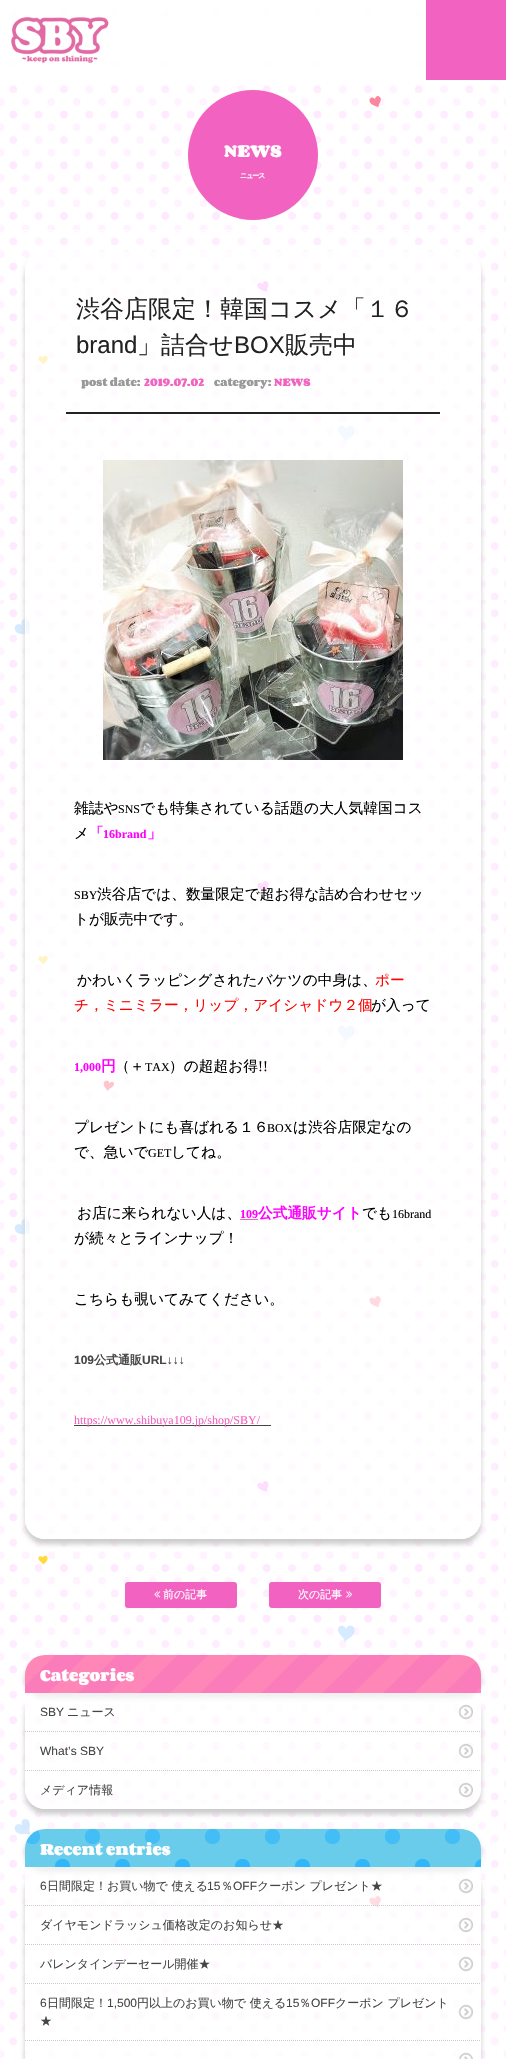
#include "include/core/SkBlurTypes.h"
#include "include/core/SkCanvas.h"
#include "include/core/SkData.h"
#include "include/core/SkFont.h"
#include "include/core/SkFontMgr.h"
#include "include/core/SkImage.h"
#include "include/core/SkMaskFilter.h"
#include "include/core/SkPaint.h"
#include "include/core/SkPathBuilder.h"
#include "include/core/SkTextBlob.h"
#include "include/effects/SkDashPathEffect.h"
#include "include/effects/SkGradientShader.h"
#include "include/utils/SkParsePath.h"

extern sk_sp<SkFontMgr> fontMgr;

static SkFont font(const char* family, int weight, float size, bool italic = false) {
    SkFontStyle style(weight, SkFontStyle::kNormal_Width,
        italic ? SkFontStyle::kItalic_Slant : SkFontStyle::kUpright_Slant);
    SkFont result(fontMgr->matchFamilyStyle(family, style), size);
    result.setSubpixel(true);
    return result;
}

static void drawLabel(SkCanvas* canvas, const char* s, float x, float y, const SkFont& font, SkColor color) {
    SkPaint ink(SkColor4f::FromColor(color));
    ink.setAntiAlias(true);
    canvas->drawString(s, x, y, font, ink);
}

static void drawTracked(SkCanvas* canvas, const char* s, float x, float y, const SkFont& font, const SkPaint& ink, float letter, float word) {
    std::vector<SkGlyphID> glyphs(font.countText(s, strlen(s), SkTextEncoding::kUTF8));
    std::vector<float> xs(glyphs.size());
    font.textToGlyphs(s, strlen(s), SkTextEncoding::kUTF8, glyphs);
    font.getXPos(glyphs, xs, x);
    float extra = 0;
    for (size_t i = 0; i < glyphs.size(); i++) {
        xs[i] += extra;
        extra += letter + word * (glyphs[i] == font.unicharToGlyph(' '));
    }
    canvas->drawTextBlob(SkTextBlob::MakeFromPosHGlyphs(glyphs, xs, y, font), 0, 0, ink);
}

static void fillRect(SkCanvas* canvas, float x, float y, float w, float h, SkColor color) {
    SkPaint ink(SkColor4f::FromColor(color));
    ink.setAntiAlias(true);
    canvas->drawRect(SkRect::MakeXYWH(x, y, w, h), ink);
}

static void fillRRect(SkCanvas* canvas, float x, float y, float w, float h, float radius, SkColor color) {
    SkPaint ink(SkColor4f::FromColor(color));
    ink.setAntiAlias(true);
    canvas->drawRoundRect(SkRect::MakeXYWH(x, y, w, h), radius, radius, ink);
}

static void drawPhoto(SkCanvas* canvas, const char* path, float x, float y, float w, float h) {
    auto image = SkImages::DeferredFromEncodedData(SkData::MakeFromFileName(path));
    canvas->drawImageRect(image, SkRect::MakeXYWH(x, y, w, h), SkSamplingOptions());
}

static SkPath parsePath(const char* data, bool evenOdd = false) {
    SkPath result = *SkParsePath::FromSVGString(data);
    if (evenOdd) result.setFillType(SkPathFillType::kEvenOdd);
    return result;
}

void draw(SkCanvas* canvas) {
    SkPaint paint;
    paint.setAntiAlias(true);
    canvas->clear(0xFFFFFFFF);
    drawPhoto(canvas, "assets/img1.png", 0, 0, 506, 2058);
    fillRect(canvas, 0, 0, 423, 80, 0xF2FFFFFF);
    drawPhoto(canvas, "assets/img2.png", 11, 17, 98, 46);
    fillRect(canvas, 426, 0, 80, 80, 0xFFF262C0);
    paint.setColor(0xFFF262C0);
    canvas->drawCircle(253, 155, 65, paint);
    SkFont font1 = font("Corben", 700, 15);
    drawLabel(canvas, "NEWS", 224, 157, font1, 0xFFFFFFFF);
    SkFont font2 = font("WenQuanYi Zen Hei", 700, 7);
    paint.setColor(0xFFFFFFFF);
    drawTracked(canvas, "ニュース", 240, 178, font2, paint, -1, 0);
    fillRect(canvas, 15, 230, 476, 1, 0xFFFFFFFF);
    canvas->save();
    canvas->clipPath(parsePath("M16 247H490V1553H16ZM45 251H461C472 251 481 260 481 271V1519C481 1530 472 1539 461 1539H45C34 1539 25 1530 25 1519V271C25 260 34 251 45 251Z", true), true);
    paint.setColor(0xFFCCCCCC);
    paint.setMaskFilter(SkMaskFilter::MakeBlur(kNormal_SkBlurStyle, 2.5f));
    canvas->drawRoundRect(SkRect::MakeXYWH(25, 256, 456, 1288), 20, 20, paint);
    paint.setMaskFilter(nullptr);
    canvas->restore();
    drawPhoto(canvas, "assets/img3.png", 25, 251, 456, 1288);
    paint.setColor(0xFFFFFFFF);
    canvas->drawPath(parsePath("M45 251H461C472 251 481 260 481 271V1519C481 1530 472 1539 461 1539H45C34 1539 25 1530 25 1519V271C25 260 34 251 45 251ZM45 251H461C471 251 480 260 480 271V1519C480 1529 471 1538 461 1538H45C35 1538 26 1529 26 1519V271C26 260 35 251 45 251Z", true), paint);
    fillRect(canvas, 66, 412, 374, 2, 0xFF222222);
    SkFont font3 = font("WenQuanYi Zen Hei", 500, 24);
    drawLabel(canvas, "渋谷店限定！韓国コスメ「１６", 76, 317, font3, 0xFF222222);
    SkFont font4 = font("Liberation Sans", 400, 24);
    drawLabel(canvas, "brand", 76, 353, font4, 0xFF222222);
    drawLabel(canvas, "」詰合せ", 137, 353, font3, 0xFF222222);
    drawLabel(canvas, "BOX", 234, 353, font4, 0xFF222222);
    drawLabel(canvas, "販売中", 285, 353, font3, 0xFF222222);
    SkFont font5 = font("Corben", 700, 9.5f);
    drawLabel(canvas, "post date:", 81, 386, font5, 0xFF999999);
    drawLabel(canvas, "2019.07.02", 144, 386, font5, 0xFFF262C0);
    drawLabel(canvas, "category:", 214, 386, font5, 0xFF999999);
    drawLabel(canvas, "NEWS", 274, 386, font5, 0xFFF262C0);
    drawPhoto(canvas, "assets/img4.png", 103, 460, 300, 300);
    SkFont font6 = font("WenQuanYi Zen Hei", 500, 14.7f);
    drawLabel(canvas, "雑誌や", 74, 813, font6, 0xFF000000);
    SkFont font7 = font("Liberation Serif", 400, 12);
    drawLabel(canvas, "SNS", 118, 813, font7, 0xFF000000);
    drawLabel(canvas, "でも特集されている話題の大人気韓国コス", 140, 813, font6, 0xFF000000);
    drawLabel(canvas, "メ", 74, 838, font6, 0xFF000000);
    SkFont font8 = font("WenQuanYi Zen Hei", 700, 14.7f);
    drawLabel(canvas, "「", 89, 838, font8, 0xFFFF00FF);
    SkFont font9 = font("Liberation Serif", 700, 12);
    drawLabel(canvas, "16brand", 103, 838, font9, 0xFFFF00FF);
    drawLabel(canvas, "」", 147, 838, font8, 0xFFFF00FF);
    drawLabel(canvas, "SBY", 74, 899, font7, 0xFF000000);
    drawLabel(canvas, "渋谷店では、数量限定で超お得な詰め合わせセッ", 97, 899, font6, 0xFF000000);
    drawLabel(canvas, "トが販売中です。", 74, 924, font6, 0xFF000000);
    drawLabel(canvas, "かわいくラッピングされたバケツの中身は、", 77, 985, font6, 0xFF000000);
    drawLabel(canvas, "ポー", 375, 985, font6, 0xFFFF0000);
    drawLabel(canvas, "チ，ミニミラー，リップ，アイシャドウ２個", 74, 1010, font6, 0xFFFF0000);
    drawLabel(canvas, "が入って", 371, 1010, font6, 0xFF000000);
    drawLabel(canvas, "1,000", 74, 1071, font9, 0xFFFF00FF);
    drawLabel(canvas, "円", 101, 1071, font8, 0xFFFF00FF);
    drawLabel(canvas, "（＋", 115, 1071, font6, 0xFF000000);
    drawLabel(canvas, "TAX", 145, 1071, font7, 0xFF000000);
    drawLabel(canvas, "）の超超お得", 169, 1071, font6, 0xFF000000);
    SkFont font10 = font("Liberation Serif", 400, 14.7f);
    drawLabel(canvas, "!!", 258, 1071, font10, 0xFF000000);
    drawLabel(canvas, "プレゼントにも喜ばれる１６", 74, 1132, font6, 0xFF000000);
    drawLabel(canvas, "BOX", 267, 1132, font7, 0xFF000000);
    drawLabel(canvas, "は渋谷店限定なの", 293, 1132, font6, 0xFF000000);
    drawLabel(canvas, "で、急いで", 74, 1157, font6, 0xFF000000);
    drawLabel(canvas, "GET", 148, 1157, font7, 0xFF000000);
    drawLabel(canvas, "してね。", 171, 1157, font6, 0xFF000000);
    drawLabel(canvas, "お店に来られない人は、", 77, 1218, font6, 0xFF000000);
    drawLabel(canvas, "109", 240, 1218, font9, 0xFFFF00FF);
    fillRect(canvas, 240, 1219, 18, 1, 0xFFF262C0);
    drawLabel(canvas, "公式通販サイト", 258, 1218, font8, 0xFFFF00FF);
    drawLabel(canvas, "でも", 362, 1218, font6, 0xFF000000);
    drawLabel(canvas, "16brand", 392, 1218, font7, 0xFF000000);
    drawLabel(canvas, "が続々とラインナップ！", 74, 1243, font6, 0xFF000000);
    drawLabel(canvas, "こちらも覗いてみてください。", 74, 1304, font6, 0xFF000000);
    SkFont font11 = font("Liberation Sans", 700, 12);
    drawLabel(canvas, "109", 74, 1364, font11, 0xFF454545);
    SkFont font12 = font("WenQuanYi Zen Hei", 700, 12);
    drawLabel(canvas, "公式通販", 94, 1364, font12, 0xFF454545);
    drawLabel(canvas, "URL↓↓↓", 142, 1364, font11, 0xFF454545);
    fillRect(canvas, 74, 1425, 185, 1, 0xFF454545);
    drawLabel(canvas, "https://www.shibuya109.jp/shop/SBY/", 74, 1424, font7, 0xFFF262C0);
    fillRect(canvas, 259, 1425, 12, 1, 0xFF454545);
    fillRRect(canvas, 125, 1582, 112, 26, 3, 0xFFF262C0);
    drawPhoto(canvas, "assets/img5.png", 154, 1591, 7, 7);
    SkFont font13 = font("WenQuanYi Zen Hei", 500, 11);
    drawLabel(canvas, "前の記事", 163, 1598, font13, 0xFFFFFFFF);
    fillRRect(canvas, 269, 1582, 112, 26, 3, 0xFFF262C0);
    drawLabel(canvas, "次の記事", 298, 1598, font13, 0xFFFFFFFF);
    drawPhoto(canvas, "assets/img6.png", 346, 1591, 7, 7);
    paint.setColor(0xFFCCCCCC);
    paint.setMaskFilter(SkMaskFilter::MakeBlur(kNormal_SkBlurStyle, 2.5f));
    canvas->drawRoundRect(SkRect::MakeXYWH(25, 1660, 456, 38), 20, 20, paint);
    paint.setMaskFilter(nullptr);
    drawPhoto(canvas, "assets/img7.png", 25, 1655, 456, 38);
    SkFont font14 = font("Corben", 700, 14);
    drawLabel(canvas, "Categories", 40, 1681, font14, 0xFFFFFFFF);
    canvas->save();
    canvas->clipPath(parsePath("M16 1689H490V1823H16ZM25 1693H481V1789C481 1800 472 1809 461 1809H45C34 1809 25 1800 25 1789Z", true), true);
    paint.setMaskFilter(SkMaskFilter::MakeBlur(kNormal_SkBlurStyle, 2.5f));
    canvas->drawRoundRect(SkRect::MakeXYWH(25, 1698, 456, 116), 20, 20, paint);
    paint.setMaskFilter(nullptr);
    canvas->restore();
    drawPhoto(canvas, "assets/img8.png", 25, 1693, 456, 116);
    paint.setStroke(true);
    paint.setStrokeWidth(1);
    paint.setPathEffect(SkDashPathEffect::Make({{1, 1}}, 0));
    canvas->drawPath(parsePath("M25 1731.5H481"), paint);
    paint.setPathEffect(nullptr);
    drawPhoto(canvas, "assets/img9.png", 458, 1704, 15, 16);
    SkFont font15 = font("Liberation Sans", 400, 12);
    drawLabel(canvas, "SBY", 40, 1716, font15, 0xFF454545);
    SkFont font16 = font("WenQuanYi Zen Hei", 500, 12);
    drawLabel(canvas, "ニュース", 67, 1716, font16, 0xFF454545);
    paint.setPathEffect(SkDashPathEffect::Make({{1, 1}}, 0));
    canvas->drawPath(parsePath("M25 1770.5H481"), paint);
    paint.setPathEffect(nullptr);
    drawPhoto(canvas, "assets/img10.png", 458, 1743, 15, 16);
    drawLabel(canvas, "What’s SBY", 40, 1755, font15, 0xFF454545);
    drawPhoto(canvas, "assets/img11.png", 458, 1782, 15, 16);
    drawLabel(canvas, "メディア情報", 40, 1794, font16, 0xFF454545);
    paint.setStroke(false);
    paint.setMaskFilter(SkMaskFilter::MakeBlur(kNormal_SkBlurStyle, 2.5f));
    canvas->drawRoundRect(SkRect::MakeXYWH(25, 1834, 456, 38), 20, 20, paint);
    paint.setMaskFilter(nullptr);
    drawPhoto(canvas, "assets/img12.png", 25, 1829, 456, 38);
    drawLabel(canvas, "Recent entries", 40, 1855, font14, 0xFFFFFFFF);
    canvas->save();
    canvas->clipPath(parsePath("M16 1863H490V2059H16ZM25 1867H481V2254C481 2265 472 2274 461 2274H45C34 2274 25 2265 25 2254Z", true), true);
    paint.setMaskFilter(SkMaskFilter::MakeBlur(kNormal_SkBlurStyle, 2.5f));
    canvas->drawRoundRect(SkRect::MakeXYWH(25, 1872, 456, 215), 20, 20, paint);
    paint.setMaskFilter(nullptr);
    canvas->restore();
    fillRect(canvas, 25, 1867, 456, 191, 0xB3FFFFFF);
    paint.setStroke(true);
    paint.setPathEffect(SkDashPathEffect::Make({{1, 1}}, 0));
    canvas->drawPath(parsePath("M25 1905.5H481"), paint);
    paint.setPathEffect(nullptr);
    drawPhoto(canvas, "assets/img13.png", 458, 1878, 15, 16);
    drawLabel(canvas, "6", 40, 1890, font15, 0xFF454545);
    drawLabel(canvas, "日間限定！お買い物で 使える", 47, 1890, font16, 0xFF454545);
    drawLabel(canvas, "15", 207, 1890, font15, 0xFF454545);
    drawLabel(canvas, "％", 221, 1890, font16, 0xFF454545);
    drawLabel(canvas, "OFF", 233, 1890, font15, 0xFF454545);
    drawLabel(canvas, "クーポン プレゼント★", 257, 1890, font16, 0xFF454545);
    paint.setPathEffect(SkDashPathEffect::Make({{1, 1}}, 0));
    canvas->drawPath(parsePath("M25 1944.5H481"), paint);
    paint.setPathEffect(nullptr);
    drawPhoto(canvas, "assets/img14.png", 458, 1917, 15, 16);
    drawLabel(canvas, "ダイヤモンドラッシュ価格改定のお知らせ★", 40, 1929, font16, 0xFF454545);
    paint.setPathEffect(SkDashPathEffect::Make({{1, 1}}, 0));
    canvas->drawPath(parsePath("M25 1983.5H481"), paint);
    paint.setPathEffect(nullptr);
    drawPhoto(canvas, "assets/img15.png", 458, 1956, 15, 16);
    drawLabel(canvas, "バレンタインデーセール開催★", 40, 1968, font16, 0xFF454545);
    paint.setPathEffect(SkDashPathEffect::Make({{1, 1}}, 0));
    canvas->drawPath(parsePath("M25 2040.5H481"), paint);
    paint.setPathEffect(nullptr);
    drawPhoto(canvas, "assets/img16.png", 458, 2004, 15, 16);
    drawLabel(canvas, "6", 40, 2007, font15, 0xFF454545);
    drawLabel(canvas, "日間限定！", 47, 2007, font16, 0xFF454545);
    drawLabel(canvas, "1,500", 107, 2007, font15, 0xFF454545);
    drawLabel(canvas, "円以上のお買い物で 使える", 137, 2007, font16, 0xFF454545);
    drawLabel(canvas, "15", 286, 2007, font15, 0xFF454545);
    drawLabel(canvas, "％", 299, 2007, font16, 0xFF454545);
    drawLabel(canvas, "OFF", 311, 2007, font15, 0xFF454545);
    drawLabel(canvas, "クーポン プレゼント", 335, 2007, font16, 0xFF454545);
    drawLabel(canvas, "★", 40, 2025, font16, 0xFF454545);
    drawPhoto(canvas, "assets/img17.png", 458, 2052, 15, 7);
}
